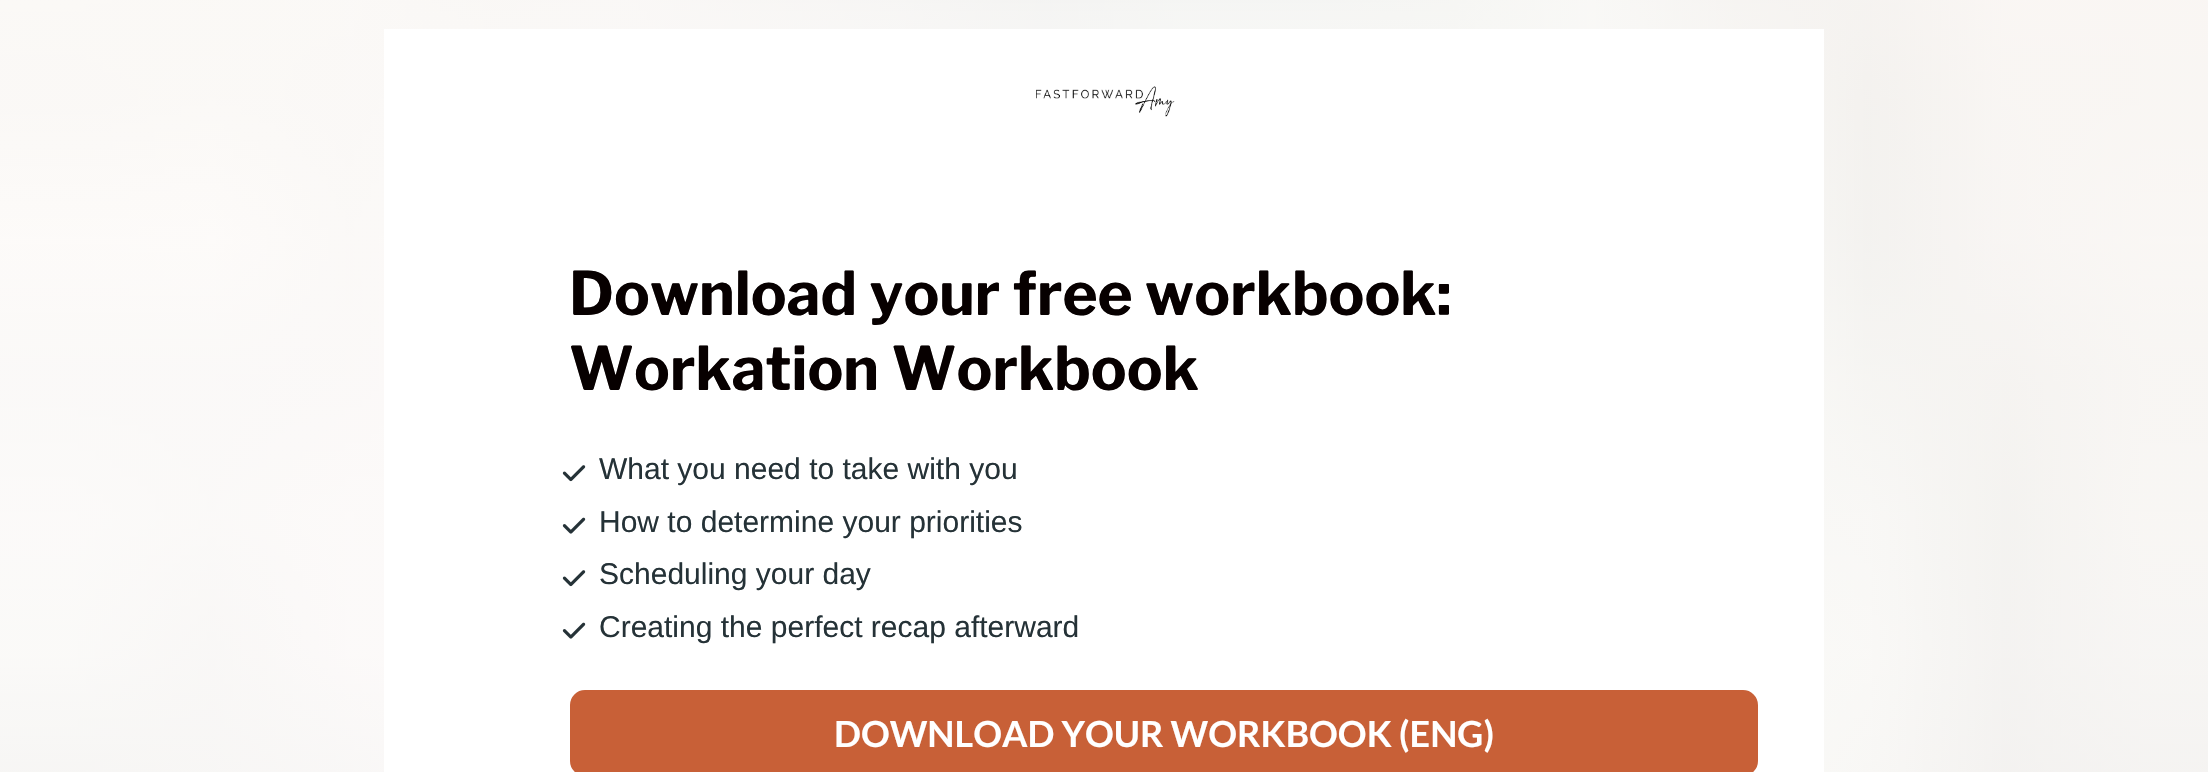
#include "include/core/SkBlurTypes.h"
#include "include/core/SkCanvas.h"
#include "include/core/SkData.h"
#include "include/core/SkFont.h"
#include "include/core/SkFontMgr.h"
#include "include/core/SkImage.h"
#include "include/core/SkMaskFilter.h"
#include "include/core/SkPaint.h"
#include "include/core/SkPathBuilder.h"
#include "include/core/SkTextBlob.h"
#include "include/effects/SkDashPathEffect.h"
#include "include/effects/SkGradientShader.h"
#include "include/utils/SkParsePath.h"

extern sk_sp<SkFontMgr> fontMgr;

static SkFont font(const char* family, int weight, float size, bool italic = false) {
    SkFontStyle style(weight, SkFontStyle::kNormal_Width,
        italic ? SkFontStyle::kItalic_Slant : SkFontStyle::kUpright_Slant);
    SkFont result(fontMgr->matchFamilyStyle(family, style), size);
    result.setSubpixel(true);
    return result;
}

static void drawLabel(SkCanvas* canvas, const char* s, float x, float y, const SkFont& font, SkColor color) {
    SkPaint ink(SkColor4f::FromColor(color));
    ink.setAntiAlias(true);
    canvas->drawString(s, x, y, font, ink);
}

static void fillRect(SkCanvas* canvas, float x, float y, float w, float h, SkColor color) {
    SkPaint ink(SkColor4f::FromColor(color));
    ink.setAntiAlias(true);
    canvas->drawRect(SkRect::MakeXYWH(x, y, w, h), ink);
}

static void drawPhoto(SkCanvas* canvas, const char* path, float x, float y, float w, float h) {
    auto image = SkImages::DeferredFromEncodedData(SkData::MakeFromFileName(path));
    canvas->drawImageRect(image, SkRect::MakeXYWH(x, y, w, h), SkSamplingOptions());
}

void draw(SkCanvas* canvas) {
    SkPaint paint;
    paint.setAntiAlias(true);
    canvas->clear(0xFFFFFFFF);
    drawPhoto(canvas, "assets/img1.png", 0, 0, 2208, 772);
    fillRect(canvas, 384, 29, 1440, 192, 0xFFFFFFFF);
    drawPhoto(canvas, "assets/img2.png", 1036, 86, 139, 31);
    fillRect(canvas, 384, 221, 1440, 551, 0xFFFFFFFF);
    SkFont font1 = font("Libre Franklin", 700, 60);
    drawLabel(canvas, "Download your free workbook:", 569, 315, font1, 0xFF070000);
    drawLabel(canvas, "Workation Workbook", 569, 390, font1, 0xFF070000);
    drawPhoto(canvas, "assets/img3.png", 562, 465, 24, 17);
    SkFont font2 = font("Liberation Sans", 400, 30);
    drawLabel(canvas, "What you need to take with you", 599, 479, font2, 0xFF253237);
    drawPhoto(canvas, "assets/img4.png", 562, 517, 24, 17);
    drawLabel(canvas, "How to determine your priorities", 599, 532, font2, 0xFF253237);
    drawPhoto(canvas, "assets/img3.png", 562, 570, 24, 17);
    drawLabel(canvas, "Scheduling your day", 599, 584, font2, 0xFF253237);
    drawPhoto(canvas, "assets/img4.png", 562, 622, 24, 17);
    drawLabel(canvas, "Creating the perfect recap afterward", 599, 637, font2, 0xFF253237);
    paint.setColor(0xFFC86037);
    canvas->drawRoundRect(SkRect::MakeXYWH(571, 691, 1186, 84), 14, 14, paint);
    paint.setStroke(true);
    paint.setStrokeWidth(2);
    canvas->drawRoundRect(SkRect::MakeXYWH(571, 691, 1186, 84), 14, 14, paint);
    SkFont font3 = font("Lato", 700, 36);
    drawLabel(canvas, "DOWNLOAD YOUR WORKBOOK (ENG)", 834, 747, font3, 0xFFFFFFFF);
}
